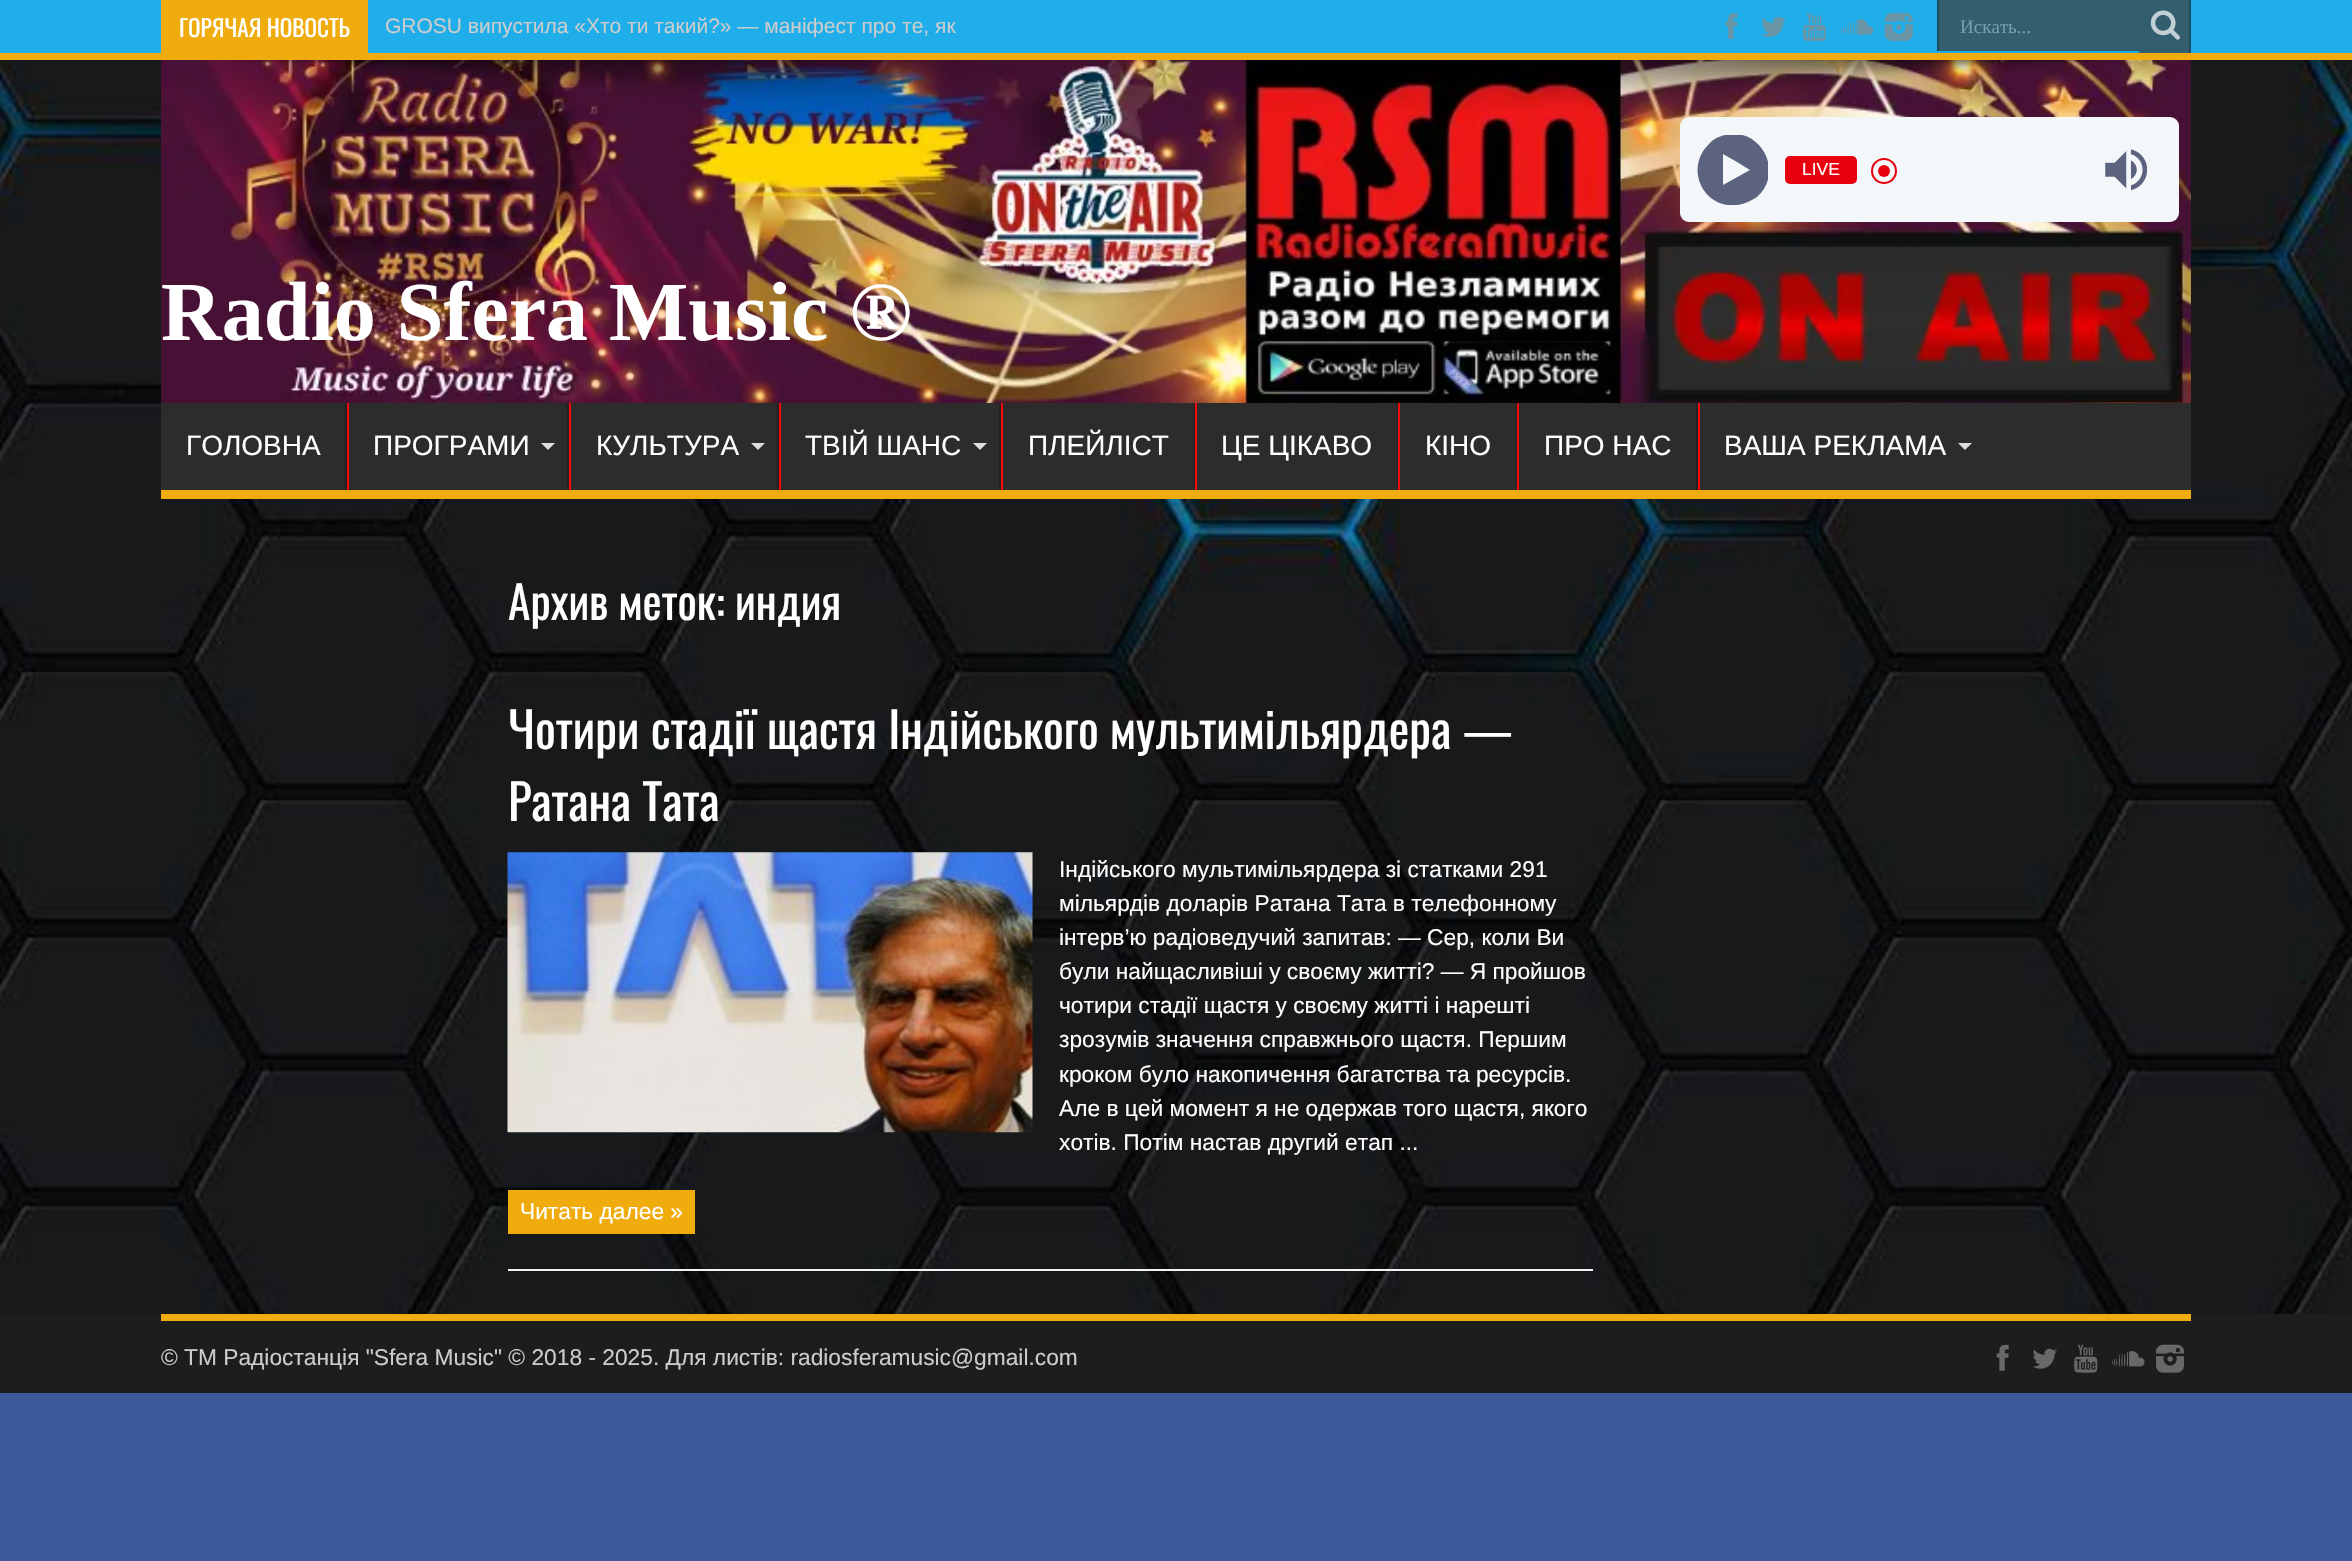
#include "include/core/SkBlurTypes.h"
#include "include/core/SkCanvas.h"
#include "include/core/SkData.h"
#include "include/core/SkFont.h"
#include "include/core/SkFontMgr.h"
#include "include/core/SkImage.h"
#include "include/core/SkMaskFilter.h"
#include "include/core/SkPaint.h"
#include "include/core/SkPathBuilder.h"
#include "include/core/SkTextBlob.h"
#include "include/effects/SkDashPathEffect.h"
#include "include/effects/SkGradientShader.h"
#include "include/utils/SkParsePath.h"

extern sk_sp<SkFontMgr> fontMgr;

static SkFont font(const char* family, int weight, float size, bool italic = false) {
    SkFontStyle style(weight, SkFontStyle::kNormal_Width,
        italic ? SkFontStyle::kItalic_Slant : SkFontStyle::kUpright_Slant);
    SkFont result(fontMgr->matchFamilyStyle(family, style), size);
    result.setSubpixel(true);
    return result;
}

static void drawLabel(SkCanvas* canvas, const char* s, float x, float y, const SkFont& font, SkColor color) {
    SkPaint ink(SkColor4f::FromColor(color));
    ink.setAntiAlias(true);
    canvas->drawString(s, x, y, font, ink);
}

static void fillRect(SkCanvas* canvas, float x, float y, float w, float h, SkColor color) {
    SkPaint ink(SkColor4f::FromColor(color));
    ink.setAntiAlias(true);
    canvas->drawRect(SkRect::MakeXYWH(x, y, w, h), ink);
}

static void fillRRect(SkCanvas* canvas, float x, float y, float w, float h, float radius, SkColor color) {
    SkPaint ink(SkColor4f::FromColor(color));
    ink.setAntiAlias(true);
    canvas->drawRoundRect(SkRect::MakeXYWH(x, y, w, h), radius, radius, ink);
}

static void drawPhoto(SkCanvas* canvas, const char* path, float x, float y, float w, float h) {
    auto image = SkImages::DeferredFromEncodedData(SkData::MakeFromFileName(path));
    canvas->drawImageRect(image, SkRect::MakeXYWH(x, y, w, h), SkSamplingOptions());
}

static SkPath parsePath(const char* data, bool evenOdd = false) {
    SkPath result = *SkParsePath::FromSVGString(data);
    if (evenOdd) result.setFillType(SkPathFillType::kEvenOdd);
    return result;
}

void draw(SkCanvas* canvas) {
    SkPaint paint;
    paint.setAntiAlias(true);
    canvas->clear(0xFF3B5998);
    drawPhoto(canvas, "assets/img1.png", 0, 60, 2352, 1254);
    fillRect(canvas, 0, 0, 2352, 53, 0xFF1FAEE9);
    fillRect(canvas, 0, 53, 2352, 7, 0xFFF0AC0C);
    fillRect(canvas, 161, 0, 207, 53, 0xFFF0AC0C);
    SkFont font1 = font("Oswald", 400, 23.25f);
    drawLabel(canvas, "ГОРЯЧАЯ НОВОСТЬ", 179, 37, font1, 0xFFFFFFFF);
    SkFont font2 = font("Liberation Sans", 400, 21);
    drawLabel(canvas, "GROSU випустила «Хто ти такий?» — маніфест про те, як", 385, 33, font2, 0xFFCCCCCC);
    drawPhoto(canvas, "assets/img2.png", 1725, 13, 13, 26);
    drawPhoto(canvas, "assets/img3.png", 1761, 17, 25, 20);
    drawPhoto(canvas, "assets/img4.png", 1802, 12, 25, 29);
    drawPhoto(canvas, "assets/img5.png", 1841, 19, 33, 16);
    drawPhoto(canvas, "assets/img6.png", 1884, 13, 29, 28);
    canvas->save();
    canvas->clipRect(SkRect::MakeXYWH(1937, 0, 254, 53));
    paint.setColor(0xFF1EAAE4);
    canvas->drawPath(parsePath("M1937 4V54H2139V4H2138V51H1937Z"), paint);
    canvas->restore();
    fillRect(canvas, 1939, 0, 200, 51, 0xFF335E70);
    fillRect(canvas, 1937, 0, 2, 51, 0xFF214C5E);
    SkFont font3 = font("Liberation Serif", 400, 19);
    drawLabel(canvas, "Искать...", 1960, 33, font3, 0xFF749FB1);
    fillRect(canvas, 2139, 0, 50, 53, 0xFF335E70);
    fillRect(canvas, 2189, 0, 2, 53, 0xFF214C5E);
    drawPhoto(canvas, "assets/img7.png", 2150, 10, 30, 30);
    drawPhoto(canvas, "assets/img8.png", 161, 60, 2030, 343);
    drawPhoto(canvas, "assets/img9.png", 234, 60, 1898, 51);
    fillRRect(canvas, 1680, 117, 499, 105, 9, 0xFFF4F7F9);
    canvas->save();
    canvas->clipRect(SkRect::MakeXYWH(1696, 135, 72, 70));
    paint.setColor(0xFF5C637E);
    canvas->drawPath(parsePath("M1730 134C1722 135 1714 138 1709 144C1684 168 1703 209 1737 205C1744 204 1751 201 1757 197C1783 174 1764 131 1730 134ZM1737 162L1750 170L1723 185V154Z"), paint);
    canvas->restore();
    fillRRect(canvas, 1785, 156, 72, 28, 5, 0xFFE8000E);
    SkFont font4 = font("Liberation Sans", 400, 17.5f);
    drawLabel(canvas, "LIVE", 1802, 175, font4, 0xFFFFFFFF);
    paint.setColor(0xFFE8000E);
    canvas->drawCircle(1884, 171, 6, paint);
    paint.setStroke(true);
    paint.setStrokeWidth(2);
    canvas->drawCircle(1884, 171, 12, paint);
    drawPhoto(canvas, "assets/img10.png", 2105, 149, 42, 42);
    SkFont font5 = font("Liberation Serif", 700, 84);
    drawLabel(canvas, "Radio Sfera Music ®", 161, 340, font5, 0xFFFFFFFF);
    fillRect(canvas, 161, 403, 2030, 87, 0xFF2C2C2C);
    fillRect(canvas, 161, 490, 2030, 9, 0xFFF0AC0C);
    SkFont font6 = font("Liberation Sans", 400, 28);
    drawLabel(canvas, "ГОЛОВНА", 186, 455, font6, 0xFFFFFFFF);
    fillRect(canvas, 345, 403, 2, 87, 0xFF222222);
    fillRect(canvas, 347, 403, 2, 87, 0xFFF70A0A);
    drawLabel(canvas, "ПРОГРАМИ", 373, 455, font6, 0xFFFFFFFF);
    paint.setStroke(false);
    paint.setColor(0xFFDDDDDD);
    canvas->drawPath(parsePath("M541 443H555L548 450Z"), paint);
    fillRect(canvas, 567, 403, 2, 87, 0xFF222222);
    fillRect(canvas, 569, 403, 2, 87, 0xFFF70A0A);
    drawLabel(canvas, "КУЛЬТУРА", 596, 455, font6, 0xFFFFFFFF);
    canvas->drawPath(parsePath("M751 443H765L758 450Z"), paint);
    fillRect(canvas, 777, 403, 2, 87, 0xFF222222);
    fillRect(canvas, 779, 403, 2, 87, 0xFFF70A0A);
    drawLabel(canvas, "ТВІЙ ШАНС", 805, 455, font6, 0xFFFFFFFF);
    canvas->drawPath(parsePath("M973 443H987L980 450Z"), paint);
    fillRect(canvas, 999, 403, 2, 87, 0xFF222222);
    fillRect(canvas, 1001, 403, 2, 87, 0xFFF70A0A);
    drawLabel(canvas, "ПЛЕЙЛIСТ", 1028, 455, font6, 0xFFFFFFFF);
    fillRect(canvas, 1194, 403, 1, 87, 0xFF222222);
    fillRect(canvas, 1195, 403, 2, 87, 0xFFF70A0A);
    drawLabel(canvas, "ЦЕ ЦІКАВО", 1221, 455, font6, 0xFFFFFFFF);
    fillRect(canvas, 1397, 403, 1, 87, 0xFF222222);
    fillRect(canvas, 1398, 403, 2, 87, 0xFFF70A0A);
    drawLabel(canvas, "КІНО", 1425, 455, font6, 0xFFFFFFFF);
    fillRect(canvas, 1516, 403, 1, 87, 0xFF222222);
    fillRect(canvas, 1517, 403, 2, 87, 0xFFF70A0A);
    drawLabel(canvas, "ПРО НАС", 1544, 455, font6, 0xFFFFFFFF);
    fillRect(canvas, 1696, 403, 2, 87, 0xFF222222);
    fillRect(canvas, 1698, 403, 2, 87, 0xFFF70A0A);
    drawLabel(canvas, "ВАША РЕКЛАМА", 1724, 455, font6, 0xFFFFFFFF);
    canvas->drawPath(parsePath("M1958 443H1972L1965 450Z"), paint);
    SkFont font7 = font("Oswald", 400, 45.5f);
    drawLabel(canvas, "Архив меток: индия", 508, 620, font7, 0xFFFFFFFF);
    fillRect(canvas, 508, 1269, 1085, 2, 0xFFF2F2F2);
    SkFont font8 = font("Oswald", 400, 49);
    drawLabel(canvas, "Чотири стадії щастя Індійського мультимільярдера —", 508, 749, font8, 0xFFFFFFFF);
    drawLabel(canvas, "Ратана Тата", 508, 821, font8, 0xFFFFFFFF);
    drawPhoto(canvas, "assets/img11.png", 507, 852, 526, 281);
    SkFont font9 = font("Liberation Sans", 400, 22.75f);
    drawLabel(canvas, "Індійського мультимільярдера зі статками 291", 1059, 877, font9, 0xFFFFFFFF);
    drawLabel(canvas, "мільярдів доларів Ратана Тата в телефонному", 1059, 911, font9, 0xFFFFFFFF);
    drawLabel(canvas, "інтерв’ю радіоведучий запитав: — Сер, коли Ви", 1059, 945, font9, 0xFFFFFFFF);
    drawLabel(canvas, "були найщасливіші у своєму житті? — Я пройшов", 1059, 979, font9, 0xFFFFFFFF);
    drawLabel(canvas, "чотири стадії щастя у своєму житті і нарешті", 1059, 1013, font9, 0xFFFFFFFF);
    drawLabel(canvas, "зрозумів значення справжнього щастя. Першим", 1059, 1047, font9, 0xFFFFFFFF);
    drawLabel(canvas, "кроком було накопичення багатства та ресурсів.", 1059, 1082, font9, 0xFFFFFFFF);
    drawLabel(canvas, "Але в цей момент я не одержав того щастя, якого", 1059, 1116, font9, 0xFFFFFFFF);
    drawLabel(canvas, "хотів. Потім настав другий етап ...", 1059, 1150, font9, 0xFFFFFFFF);
    fillRect(canvas, 508, 1190, 187, 44, 0xFFF0AC0C);
    drawLabel(canvas, "Читать далее »", 520, 1219, font9, 0xFFFFFFFF);
    fillRect(canvas, 0, 1314, 2352, 79, 0xFF1D1D1D);
    fillRect(canvas, 161, 1314, 2030, 7, 0xFFF0AC0C);
    drawLabel(canvas, "© ТМ Радiостанцiя \"Sfera Music\" © 2018 - 2025. Для листів: radiosferamusic@gmail.com", 161, 1365, font9, 0xFFCCCCCC);
    drawPhoto(canvas, "assets/img12.png", 1996, 1344, 13, 27);
    drawPhoto(canvas, "assets/img13.png", 2032, 1348, 25, 21);
    drawPhoto(canvas, "assets/img14.png", 2074, 1344, 24, 29);
    drawPhoto(canvas, "assets/img15.png", 2112, 1351, 33, 16);
    drawPhoto(canvas, "assets/img16.png", 2156, 1344, 28, 29);
}
